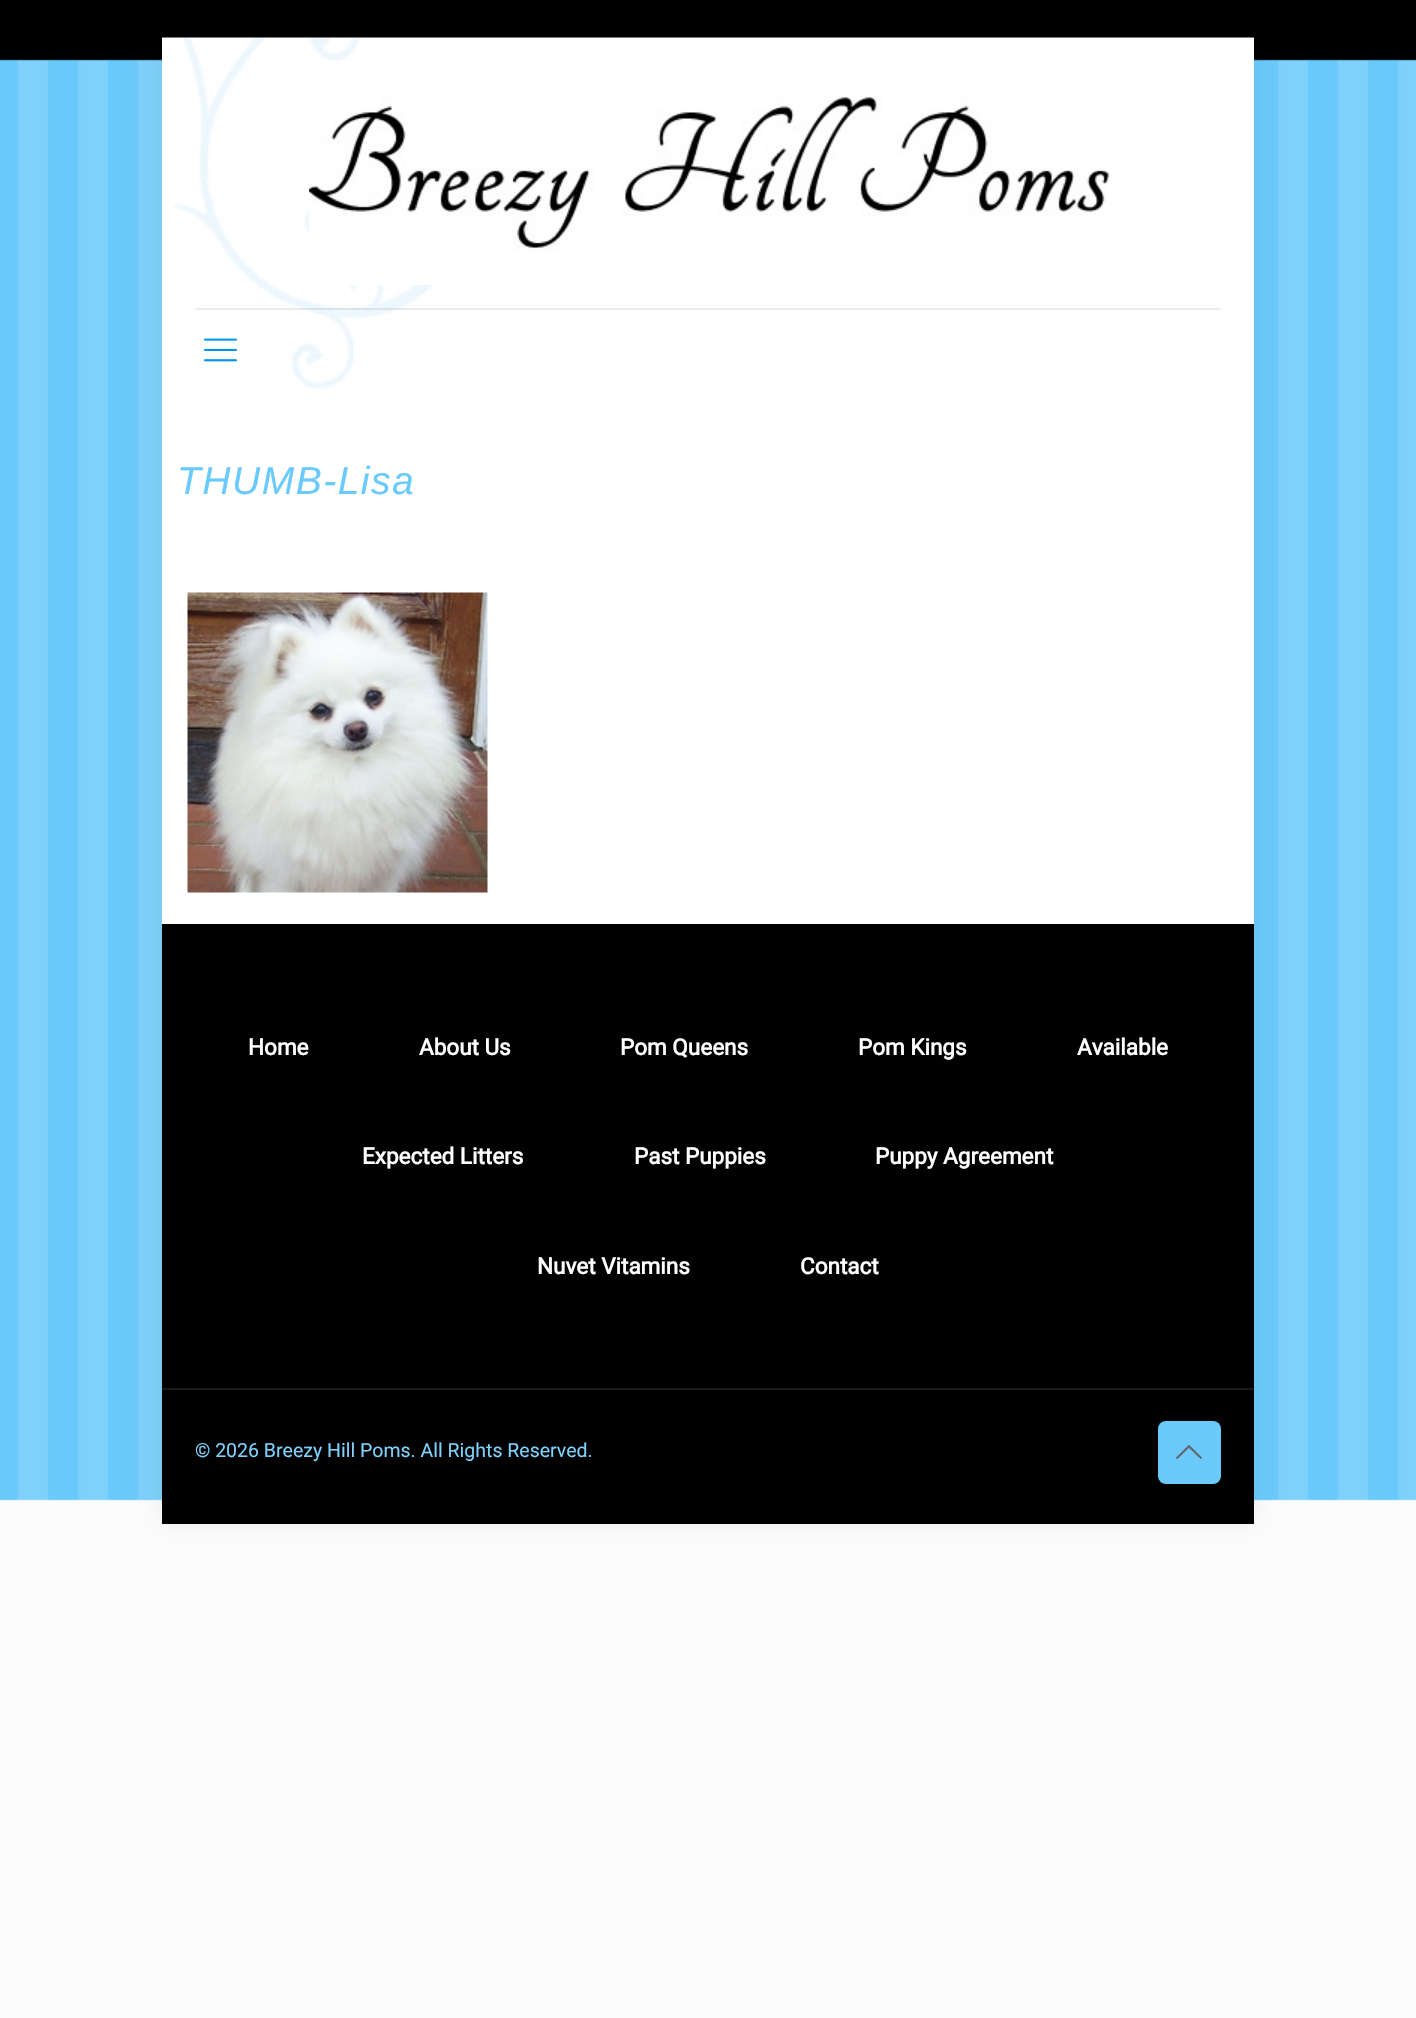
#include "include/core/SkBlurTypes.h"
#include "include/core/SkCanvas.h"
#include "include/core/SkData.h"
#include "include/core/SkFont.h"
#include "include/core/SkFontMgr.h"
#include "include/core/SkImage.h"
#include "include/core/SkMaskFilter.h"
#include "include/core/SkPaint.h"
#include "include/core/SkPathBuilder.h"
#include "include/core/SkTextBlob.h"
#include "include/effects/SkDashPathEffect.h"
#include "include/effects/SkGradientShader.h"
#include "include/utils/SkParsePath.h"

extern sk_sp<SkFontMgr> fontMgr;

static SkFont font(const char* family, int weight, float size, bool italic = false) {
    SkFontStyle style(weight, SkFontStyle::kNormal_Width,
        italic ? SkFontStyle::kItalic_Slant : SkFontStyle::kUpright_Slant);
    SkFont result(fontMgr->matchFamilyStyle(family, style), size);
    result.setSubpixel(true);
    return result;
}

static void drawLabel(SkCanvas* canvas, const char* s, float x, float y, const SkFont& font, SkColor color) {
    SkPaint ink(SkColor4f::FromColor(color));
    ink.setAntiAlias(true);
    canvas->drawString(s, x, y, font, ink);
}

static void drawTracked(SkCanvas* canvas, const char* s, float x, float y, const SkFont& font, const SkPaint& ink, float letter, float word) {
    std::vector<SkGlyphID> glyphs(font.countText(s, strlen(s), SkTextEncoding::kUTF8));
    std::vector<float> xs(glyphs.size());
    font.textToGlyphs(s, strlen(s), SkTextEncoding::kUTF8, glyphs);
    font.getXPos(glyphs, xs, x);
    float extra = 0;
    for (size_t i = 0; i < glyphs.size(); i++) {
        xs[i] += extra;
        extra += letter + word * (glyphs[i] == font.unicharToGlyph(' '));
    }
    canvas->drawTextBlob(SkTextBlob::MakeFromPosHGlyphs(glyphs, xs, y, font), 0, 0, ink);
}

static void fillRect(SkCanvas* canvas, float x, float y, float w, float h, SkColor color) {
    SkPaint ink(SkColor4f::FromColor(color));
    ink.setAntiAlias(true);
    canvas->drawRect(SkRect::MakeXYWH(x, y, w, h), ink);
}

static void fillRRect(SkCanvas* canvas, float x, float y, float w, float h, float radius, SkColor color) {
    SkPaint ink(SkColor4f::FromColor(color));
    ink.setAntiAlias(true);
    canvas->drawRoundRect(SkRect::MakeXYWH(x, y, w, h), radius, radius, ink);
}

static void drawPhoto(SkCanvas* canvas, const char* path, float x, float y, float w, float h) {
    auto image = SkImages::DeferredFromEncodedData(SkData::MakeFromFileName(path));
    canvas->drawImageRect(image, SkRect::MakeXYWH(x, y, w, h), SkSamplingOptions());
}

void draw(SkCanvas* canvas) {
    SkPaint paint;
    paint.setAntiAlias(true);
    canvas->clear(0xFFFCFCFC);
    drawPhoto(canvas, "assets/img1.png", 0, 0, 1416, 1501);
    paint.setColor(0x0F000000);
    paint.setMaskFilter(SkMaskFilter::MakeBlur(kNormal_SkBlurStyle, 11));
    canvas->drawRect(SkRect::MakeXYWH(162, 38, 1092, 1486), paint);
    paint.setMaskFilter(nullptr);
    fillRect(canvas, 162, 390, 1092, 534, 0xFFFFFFFF);
    drawPhoto(canvas, "assets/img2.png", 162, 37, 1092, 353);
    fillRect(canvas, 195, 308, 1026, 2, 0x14000000);
    drawPhoto(canvas, "assets/img3.png", 309, 60, 800, 225);
    drawPhoto(canvas, "assets/img4.png", 204, 338, 33, 24);
    SkFont font1 = font("Liberation Sans", 400, 39, true);
    paint.setColor(0xFF6ACAFC);
    drawTracked(canvas, "THUMB-Lisa", 177, 494, font1, paint, 1.5f, 0);
    drawPhoto(canvas, "assets/img5.png", 187, 592, 301, 301);
    fillRect(canvas, 162, 924, 1092, 600, 0xFF000000);
    SkFont font2 = font("Roboto", 700, 22.5f);
    drawLabel(canvas, "Home", 248, 1055, font2, 0xFFFFFFFF);
    drawLabel(canvas, "About Us", 419, 1055, font2, 0xFFFFFFFF);
    drawLabel(canvas, "Pom Queens", 620, 1055, font2, 0xFFFFFFFF);
    drawLabel(canvas, "Pom Kings", 858, 1055, font2, 0xFFFFFFFF);
    drawLabel(canvas, "Available", 1077, 1055, font2, 0xFFFFFFFF);
    drawLabel(canvas, "Expected Litters", 362, 1164, font2, 0xFFFFFFFF);
    drawLabel(canvas, "Past Puppies", 634, 1164, font2, 0xFFFFFFFF);
    drawLabel(canvas, "Puppy Agreement", 875, 1164, font2, 0xFFFFFFFF);
    drawLabel(canvas, "Nuvet Vitamins", 537, 1274, font2, 0xFFFFFFFF);
    drawLabel(canvas, "Contact", 800, 1274, font2, 0xFFFFFFFF);
    fillRect(canvas, 162, 1388, 1092, 2, 0xFF1A1A1A);
    SkFont font3 = font("Roboto", 400, 19.5f);
    drawLabel(canvas, "© 2026 Breezy Hill Poms. All Rights Reserved.", 195, 1457, font3, 0xFF7ED1FB);
    fillRRect(canvas, 1158, 1421, 63, 63, 8, 0xFF6ACAFC);
    drawPhoto(canvas, "assets/img6.png", 1176, 1445, 26, 14);
}
